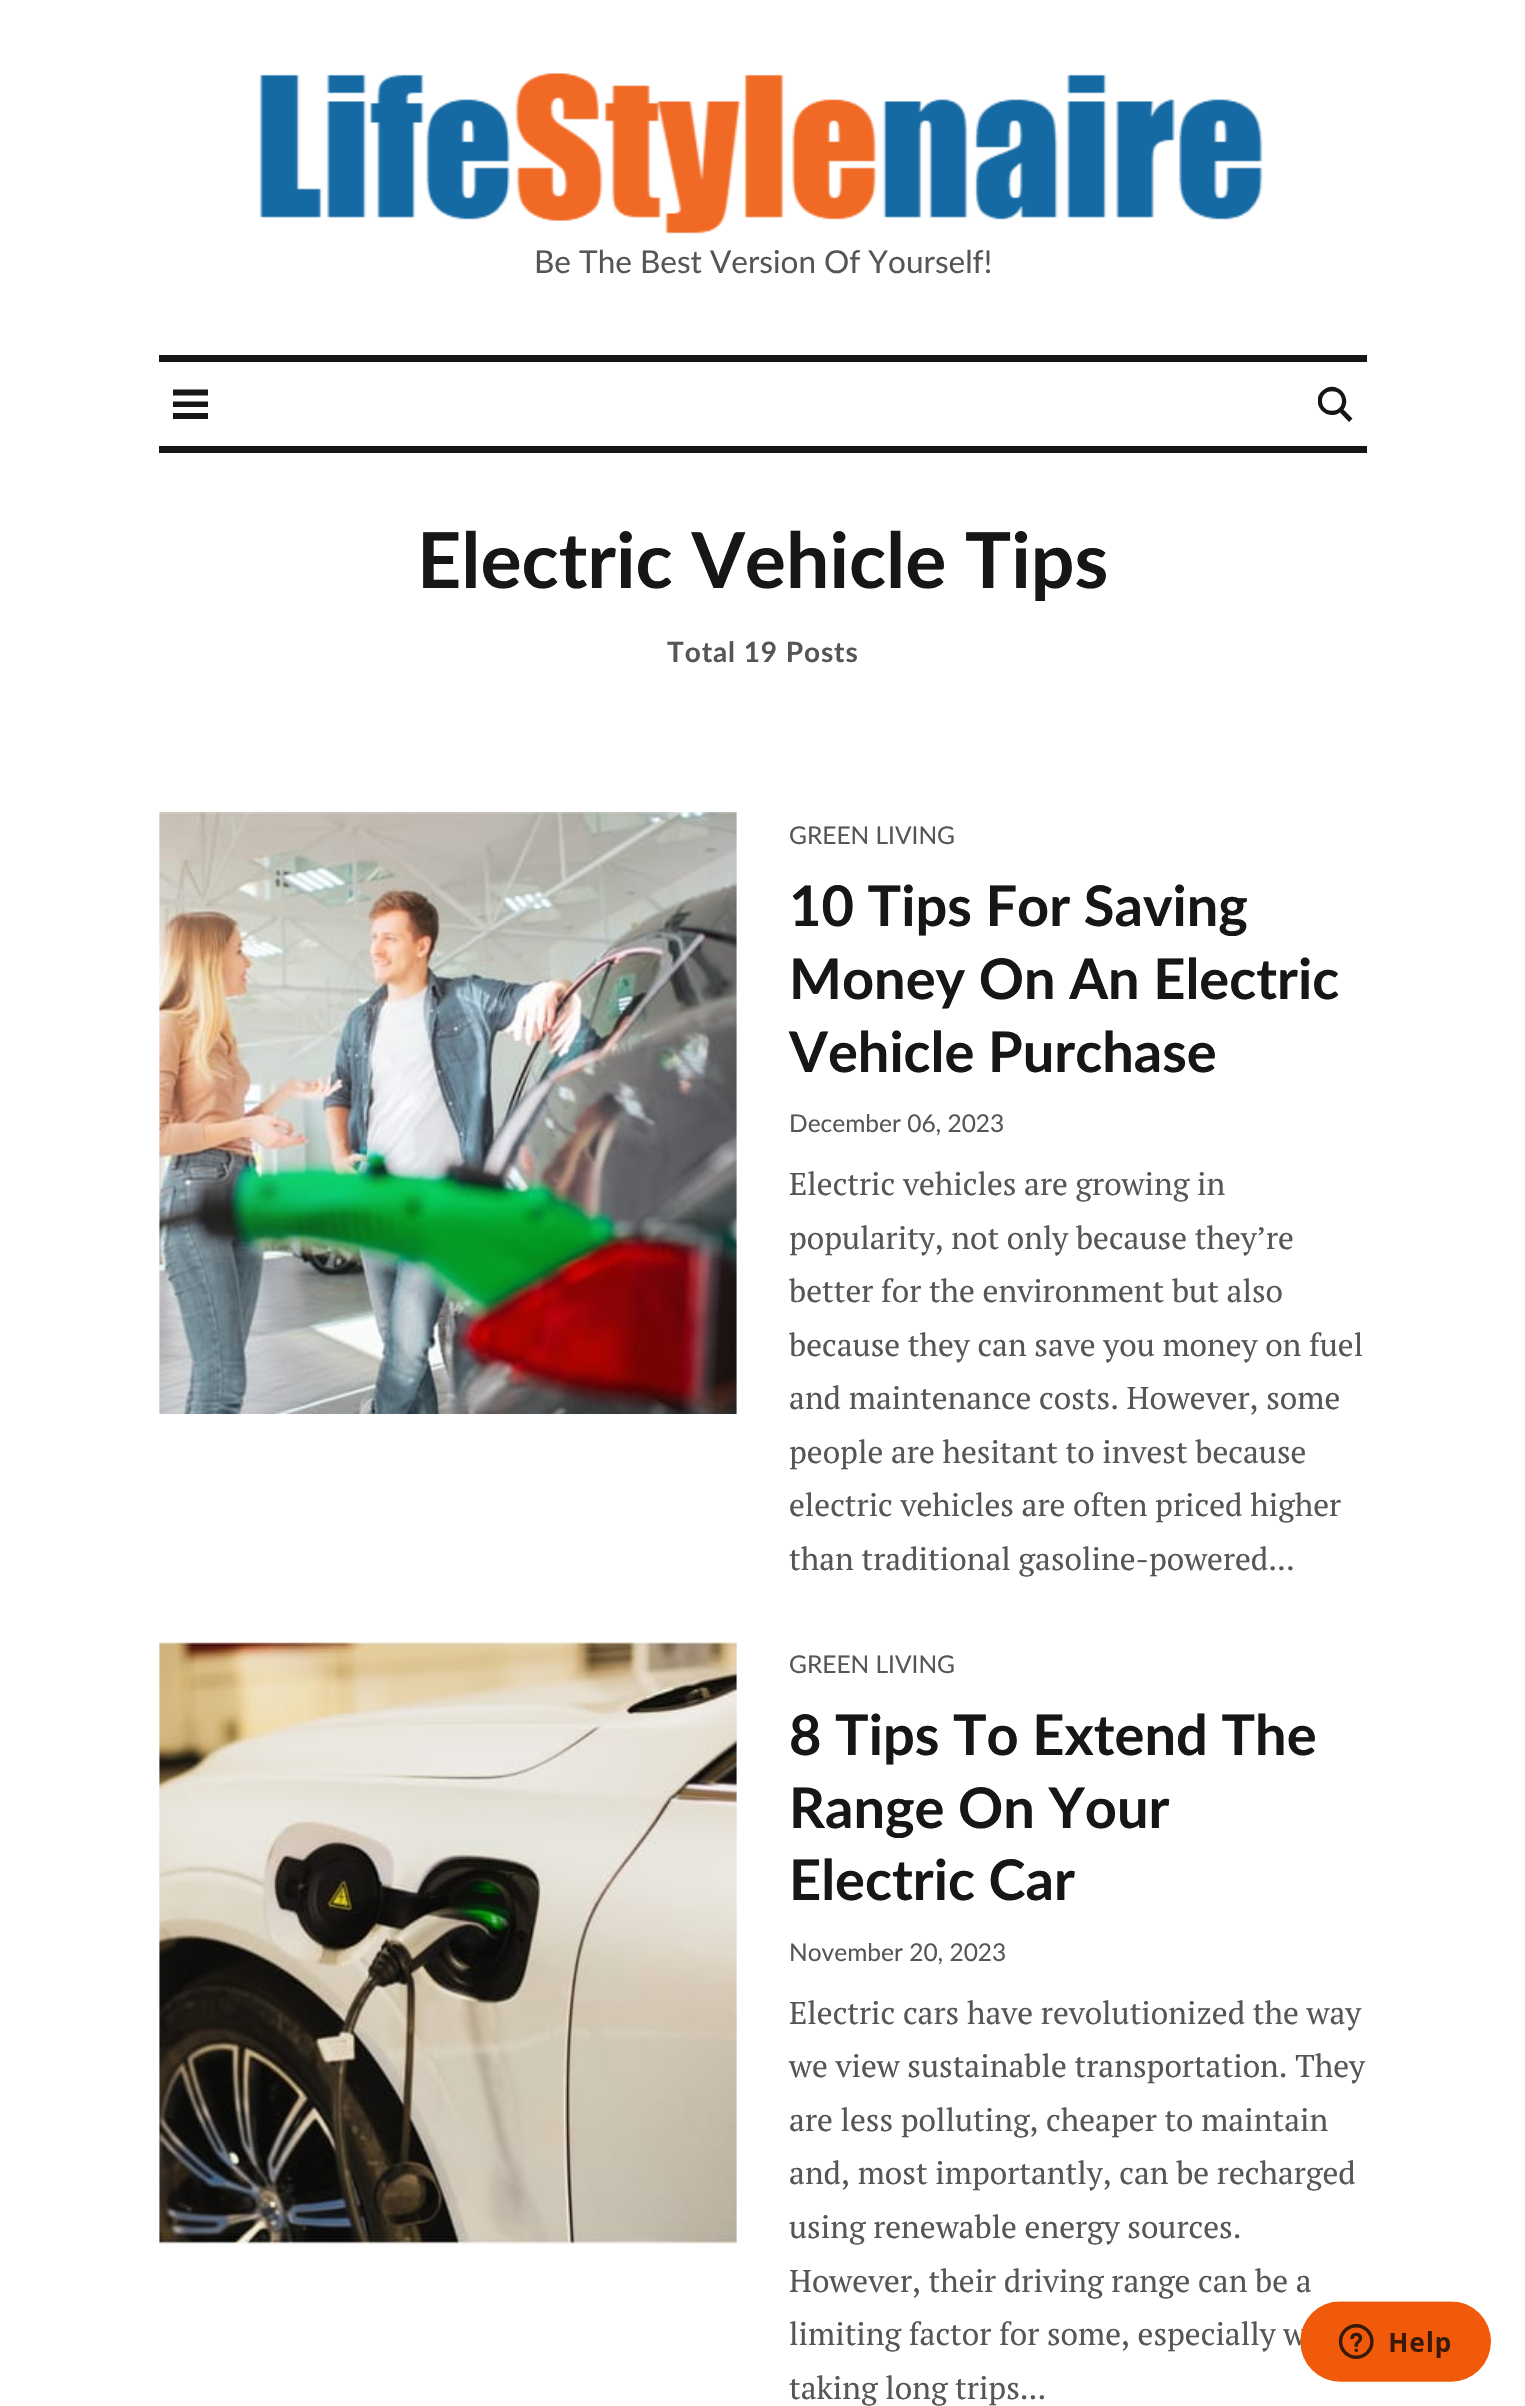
#include "include/core/SkBlurTypes.h"
#include "include/core/SkCanvas.h"
#include "include/core/SkData.h"
#include "include/core/SkFont.h"
#include "include/core/SkFontMgr.h"
#include "include/core/SkImage.h"
#include "include/core/SkMaskFilter.h"
#include "include/core/SkPaint.h"
#include "include/core/SkPathBuilder.h"
#include "include/core/SkTextBlob.h"
#include "include/effects/SkDashPathEffect.h"
#include "include/effects/SkGradientShader.h"
#include "include/utils/SkParsePath.h"

extern sk_sp<SkFontMgr> fontMgr;

static SkFont font(const char* family, int weight, float size, bool italic = false) {
    SkFontStyle style(weight, SkFontStyle::kNormal_Width,
        italic ? SkFontStyle::kItalic_Slant : SkFontStyle::kUpright_Slant);
    SkFont result(fontMgr->matchFamilyStyle(family, style), size);
    result.setSubpixel(true);
    return result;
}

static void drawLabel(SkCanvas* canvas, const char* s, float x, float y, const SkFont& font, SkColor color) {
    SkPaint ink(SkColor4f::FromColor(color));
    ink.setAntiAlias(true);
    canvas->drawString(s, x, y, font, ink);
}

static void drawTracked(SkCanvas* canvas, const char* s, float x, float y, const SkFont& font, const SkPaint& ink, float letter, float word) {
    std::vector<SkGlyphID> glyphs(font.countText(s, strlen(s), SkTextEncoding::kUTF8));
    std::vector<float> xs(glyphs.size());
    font.textToGlyphs(s, strlen(s), SkTextEncoding::kUTF8, glyphs);
    font.getXPos(glyphs, xs, x);
    float extra = 0;
    for (size_t i = 0; i < glyphs.size(); i++) {
        xs[i] += extra;
        extra += letter + word * (glyphs[i] == font.unicharToGlyph(' '));
    }
    canvas->drawTextBlob(SkTextBlob::MakeFromPosHGlyphs(glyphs, xs, y, font), 0, 0, ink);
}

static void fillRect(SkCanvas* canvas, float x, float y, float w, float h, SkColor color) {
    SkPaint ink(SkColor4f::FromColor(color));
    ink.setAntiAlias(true);
    canvas->drawRect(SkRect::MakeXYWH(x, y, w, h), ink);
}

static void drawPhoto(SkCanvas* canvas, const char* path, float x, float y, float w, float h) {
    auto image = SkImages::DeferredFromEncodedData(SkData::MakeFromFileName(path));
    canvas->drawImageRect(image, SkRect::MakeXYWH(x, y, w, h), SkSamplingOptions());
}

static SkPath parsePath(const char* data, bool evenOdd = false) {
    SkPath result = *SkParsePath::FromSVGString(data);
    if (evenOdd) result.setFillType(SkPathFillType::kEvenOdd);
    return result;
}

void draw(SkCanvas* canvas) {
    SkPaint paint;
    paint.setAntiAlias(true);
    canvas->clear(0xFFFFFFFF);
    drawPhoto(canvas, "assets/img1.png", 259, 73, 1004, 161);
    SkFont font1 = font("Lato", 400, 31.5f);
    drawLabel(canvas, "Be The Best Version Of Yourself!", 534, 273, font1, 0xFF565656);
    fillRect(canvas, 159, 355, 1208, 7, 0xFF161616);
    fillRect(canvas, 159, 446, 1208, 7, 0xFF161616);
    paint.setColor(0xFF161616);
    canvas->drawPath(parsePath("M208 395.5H173V389.5H208ZM208 401.5H173V407H208ZM208 413H173V419H208Z"), paint);
    canvas->save();
    canvas->clipRect(SkRect::MakeXYWH(1318, 383, 35, 42));
    canvas->drawPath(parsePath("M1352.5 418.5L1343.5 409.5C1353.5 395.5 1334.5 378.5 1322 391C1309.5 403 1326 422 1340 412.5L1349 422ZM1322 401C1322 388 1342 388 1342 401C1342 414 1322 414 1322 401Z"), paint);
    canvas->restore();
    SkFont font2 = font("Lato", 700, 77);
    drawLabel(canvas, "Electric Vehicle Tips", 417, 588, font2, 0xFF161616);
    SkFont font3 = font("Lato", 700, 28);
    paint.setColor(0xFF565656);
    drawTracked(canvas, "Total 19 Posts", 667, 662, font3, paint, 0.9f, 0);
    fillRect(canvas, 159, 812, 578, 602, 0xFFF6F6F6);
    drawPhoto(canvas, "assets/img2.png", 159, 812, 578, 602);
    SkFont font4 = font("Lato", 400, 24.5f);
    drawLabel(canvas, "GREEN LIVING", 789, 844, font4, 0xFF565656);
    SkFont font5 = font("Lato", 700, 56);
    drawLabel(canvas, "10 Tips For Saving", 789, 926, font5, 0xFF161616);
    drawLabel(canvas, "Money On An Electric", 789, 999, font5, 0xFF161616);
    drawLabel(canvas, "Vehicle Purchase", 789, 1072, font5, 0xFF161616);
    drawLabel(canvas, "December 06, 2023", 789, 1132, font4, 0xFF565656);
    SkFont font6 = font("PT Serif", 400, 31.5f);
    drawLabel(canvas, "Electric vehicles are growing in", 789, 1195, font6, 0xFF565656);
    drawLabel(canvas, "popularity, not only because they’re", 789, 1249, font6, 0xFF565656);
    drawLabel(canvas, "better for the environment but also", 789, 1302, font6, 0xFF565656);
    drawLabel(canvas, "because they can save you money on fuel", 789, 1356, font6, 0xFF565656);
    drawLabel(canvas, "and maintenance costs. However, some", 789, 1409, font6, 0xFF565656);
    drawLabel(canvas, "people are hesitant to invest because", 789, 1463, font6, 0xFF565656);
    drawLabel(canvas, "electric vehicles are often priced higher", 789, 1516, font6, 0xFF565656);
    drawLabel(canvas, "than traditional gasoline-powered...", 789, 1570, font6, 0xFF565656);
    fillRect(canvas, 159, 1642, 578, 602, 0xFFF6F6F6);
    drawPhoto(canvas, "assets/img3.png", 159, 1641, 578, 603);
    drawLabel(canvas, "GREEN LIVING", 789, 1673, font4, 0xFF565656);
    drawLabel(canvas, "8 Tips To Extend The", 789, 1755, font5, 0xFF161616);
    drawLabel(canvas, "Range On Your", 789, 1828, font5, 0xFF161616);
    drawLabel(canvas, "Electric Car", 789, 1900, font5, 0xFF161616);
    drawLabel(canvas, "November 20, 2023", 789, 1961, font4, 0xFF565656);
    drawLabel(canvas, "Electric cars have revolutionized the way", 789, 2024, font6, 0xFF565656);
    drawLabel(canvas, "we view sustainable transportation. They", 789, 2077, font6, 0xFF565656);
    drawLabel(canvas, "are less polluting, cheaper to maintain", 789, 2131, font6, 0xFF565656);
    drawLabel(canvas, "and, most importantly, can be recharged", 789, 2184, font6, 0xFF565656);
    drawLabel(canvas, "using renewable energy sources.", 789, 2238, font6, 0xFF565656);
    drawLabel(canvas, "However, their driving range can be a", 789, 2292, font6, 0xFF565656);
    drawLabel(canvas, "limiting factor for some, especially w", 789, 2345, font6, 0xFF565656);
    drawLabel(canvas, "taking long trips...", 789, 2399, font6, 0xFF565656);
    drawPhoto(canvas, "assets/img4.png", 1300, 2301, 191, 81);
}
